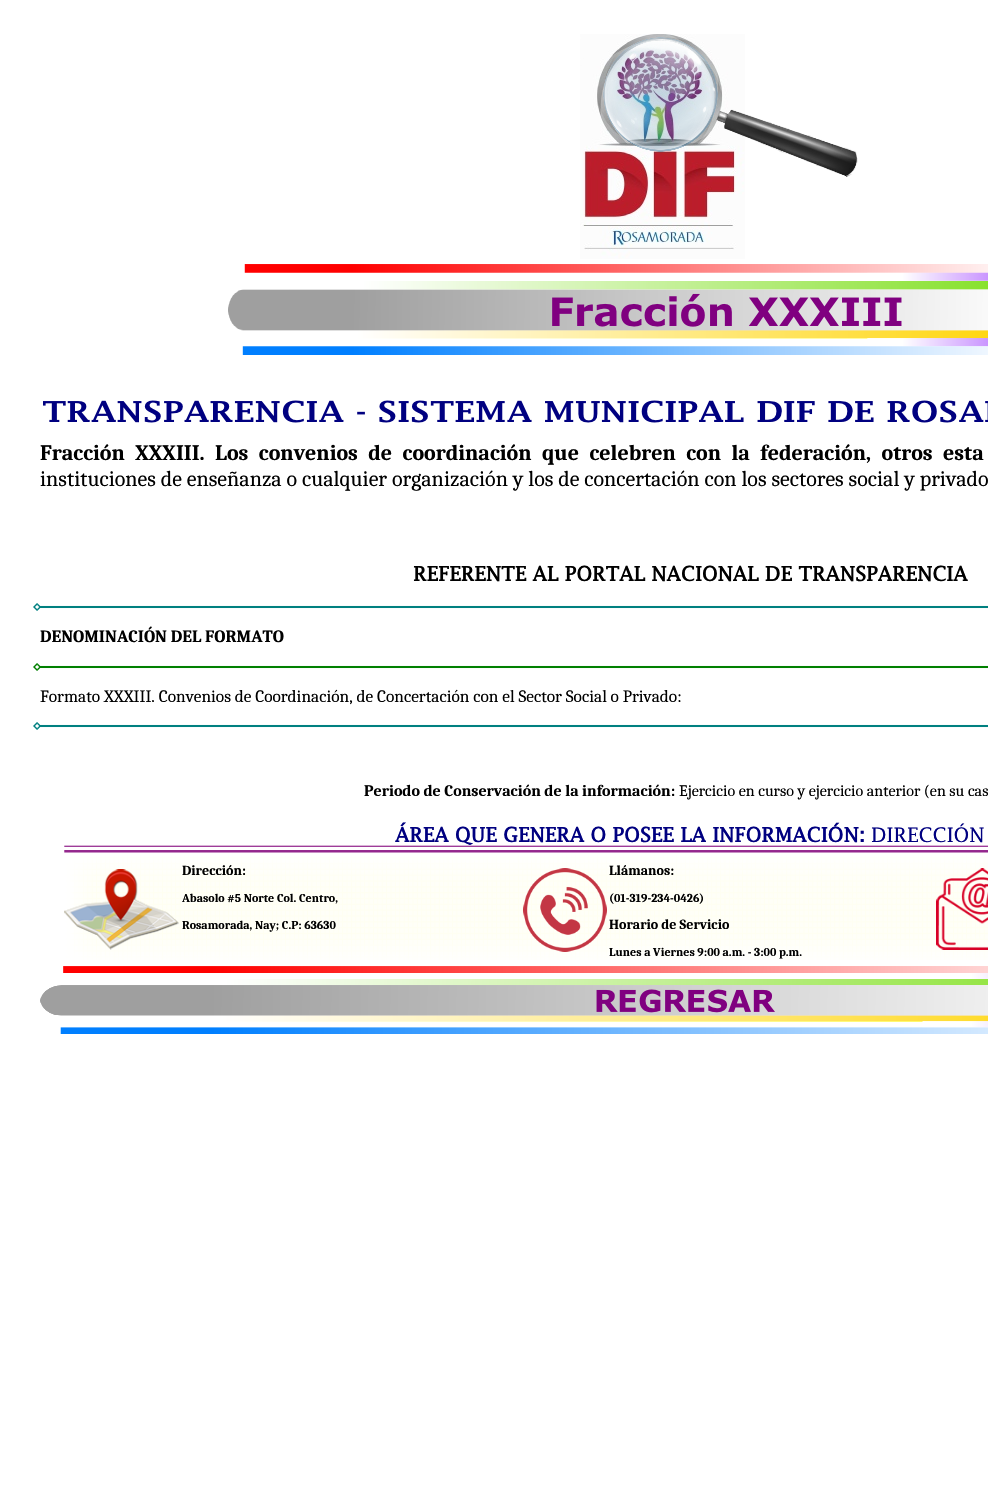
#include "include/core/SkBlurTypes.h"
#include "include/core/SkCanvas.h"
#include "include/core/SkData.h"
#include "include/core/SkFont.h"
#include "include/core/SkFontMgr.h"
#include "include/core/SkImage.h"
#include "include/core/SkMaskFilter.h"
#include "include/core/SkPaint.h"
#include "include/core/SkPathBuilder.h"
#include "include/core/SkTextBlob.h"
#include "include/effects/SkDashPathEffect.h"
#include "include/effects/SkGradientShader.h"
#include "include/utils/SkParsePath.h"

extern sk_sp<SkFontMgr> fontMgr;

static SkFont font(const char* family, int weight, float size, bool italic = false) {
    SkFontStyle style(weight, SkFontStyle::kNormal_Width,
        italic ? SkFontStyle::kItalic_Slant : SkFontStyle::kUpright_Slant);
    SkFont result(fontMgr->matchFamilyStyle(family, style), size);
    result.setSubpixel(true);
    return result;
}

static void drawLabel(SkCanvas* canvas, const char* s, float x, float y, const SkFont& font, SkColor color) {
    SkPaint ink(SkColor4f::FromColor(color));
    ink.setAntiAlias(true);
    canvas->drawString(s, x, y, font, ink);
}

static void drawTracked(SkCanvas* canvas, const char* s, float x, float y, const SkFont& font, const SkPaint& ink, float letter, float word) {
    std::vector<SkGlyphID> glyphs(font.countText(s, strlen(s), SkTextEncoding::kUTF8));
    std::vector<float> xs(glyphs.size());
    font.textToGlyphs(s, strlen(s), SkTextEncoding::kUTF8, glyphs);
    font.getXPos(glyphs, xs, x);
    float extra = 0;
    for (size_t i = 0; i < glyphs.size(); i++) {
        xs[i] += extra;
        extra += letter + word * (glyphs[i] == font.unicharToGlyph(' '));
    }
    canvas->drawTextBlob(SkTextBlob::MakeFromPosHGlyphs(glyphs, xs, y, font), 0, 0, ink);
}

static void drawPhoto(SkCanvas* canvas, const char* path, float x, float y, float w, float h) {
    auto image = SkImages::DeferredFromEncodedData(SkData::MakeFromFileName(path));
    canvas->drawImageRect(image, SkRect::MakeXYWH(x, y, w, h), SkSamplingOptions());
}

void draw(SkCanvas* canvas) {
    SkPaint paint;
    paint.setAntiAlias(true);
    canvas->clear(0xFFFFFFFF);
    drawPhoto(canvas, "assets/img1.png", 580, 34, 165, 225);
    drawPhoto(canvas, "assets/img3.png", 716, 109, 142, 68);
    drawPhoto(canvas, "assets/img2.png", 603, 37, 115, 115);
    drawPhoto(canvas, "assets/img4.png", 228, 264, 760, 91);
    drawPhoto(canvas, "assets/img5.png", 43, 400, 945, 23);
    SkFont font1 = font("Caladea", 700, 22);
    paint.setColor(0xFF000000);
    drawTracked(canvas, "Fracción XXXIII. Los convenios de coordinación que celebren con la federación, otros esta", 40, 460, font1, paint, 0, 5.6f);
    SkFont font2 = font("Caladea", 400, 22);
    drawLabel(canvas, "instituciones de enseñanza o cualquier organización y los de concertación con los sectores social y privado", 40, 486, font2, 0xFF000000);
    SkFont font3 = font("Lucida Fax", 700, 20);
    drawLabel(canvas, "REFERENTE AL PORTAL NACIONAL DE TRANSPARENCIA", 413, 581, font3, 0xFF000000);
    drawPhoto(canvas, "assets/img6.png", 33, 603, 955, 8);
    SkFont font4 = font("Caladea", 700, 17.3f);
    drawLabel(canvas, "DENOMINACIÓN DEL FORMATO", 40, 642, font4, 0xFF000000);
    SkFont font5 = font("Caladea", 400, 17.3f);
    drawLabel(canvas, "Formato XXXIII. Convenios de Coordinación, de Concertación con el Sector Social o Privado:", 40, 702, font5, 0xFF000000);
    drawPhoto(canvas, "assets/img7.png", 33, 663, 955, 8);
    drawPhoto(canvas, "assets/img6.png", 33, 722, 955, 8);
    SkFont font6 = font("Caladea", 700, 16);
    drawLabel(canvas, "Periodo de Conservación de la información:", 364, 796, font6, 0xFF000000);
    SkFont font7 = font("Caladea", 400, 16);
    drawLabel(canvas, "Ejercicio en curso y ejercicio anterior (en su cas", 679, 796, font7, 0xFF000000);
    drawLabel(canvas, "ÁREA QUE GENERA O POSEE LA INFORMACIÓN:", 395, 842, font3, 0xFF000080);
    SkFont font8 = font("Lucida Fax", 400, 20);
    drawLabel(canvas, "DIRECCIÓN", 871, 842, font8, 0xFF000080);
    drawPhoto(canvas, "assets/img8.png", 64, 845, 924, 115);
    drawPhoto(canvas, "assets/img9.png", 64, 869, 115, 81);
    SkFont font9 = font("Caladea", 700, 14);
    drawLabel(canvas, "Dirección:", 182, 875, font9, 0xFF000000);
    SkFont font10 = font("Caladea", 700, 12);
    drawLabel(canvas, "Abasolo #5 Norte Col. Centro,", 182, 902, font10, 0xFF000000);
    drawLabel(canvas, "Rosamorada, Nay; C.P: 63630", 182, 929, font10, 0xFF000000);
    drawPhoto(canvas, "assets/img10.png", 523, 868, 84, 84);
    drawLabel(canvas, "Llámanos:", 609, 875, font9, 0xFF000000);
    drawLabel(canvas, "(01-319-234-0426)", 609, 902, font10, 0xFF000000);
    drawLabel(canvas, "Horario de Servicio", 609, 929, font9, 0xFF000000);
    drawLabel(canvas, "Lunes a Viernes 9:00 a.m. - 3:00 p.m.", 609, 956, font10, 0xFF000000);
    drawPhoto(canvas, "assets/img11.png", 936, 868, 52, 82);
    drawPhoto(canvas, "assets/img12.png", 40, 966, 948, 68);
}
